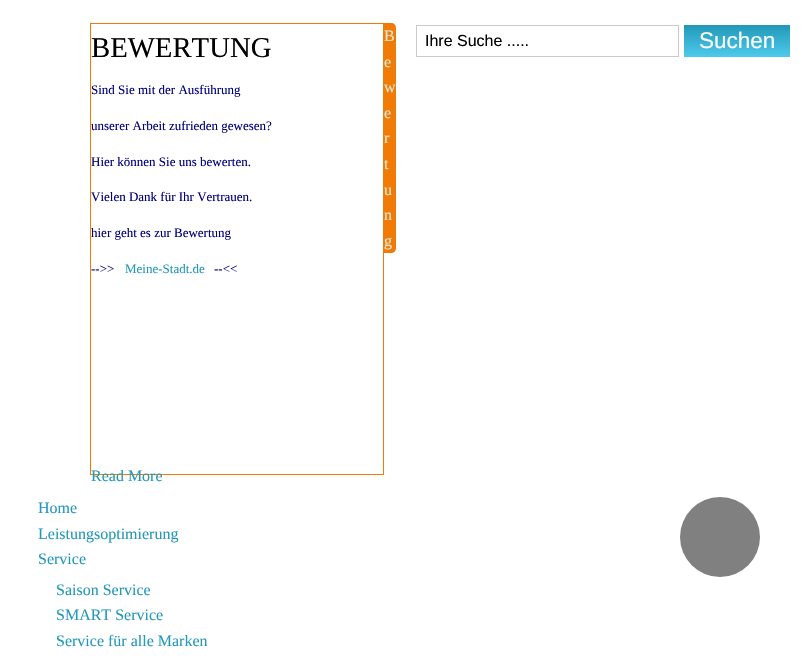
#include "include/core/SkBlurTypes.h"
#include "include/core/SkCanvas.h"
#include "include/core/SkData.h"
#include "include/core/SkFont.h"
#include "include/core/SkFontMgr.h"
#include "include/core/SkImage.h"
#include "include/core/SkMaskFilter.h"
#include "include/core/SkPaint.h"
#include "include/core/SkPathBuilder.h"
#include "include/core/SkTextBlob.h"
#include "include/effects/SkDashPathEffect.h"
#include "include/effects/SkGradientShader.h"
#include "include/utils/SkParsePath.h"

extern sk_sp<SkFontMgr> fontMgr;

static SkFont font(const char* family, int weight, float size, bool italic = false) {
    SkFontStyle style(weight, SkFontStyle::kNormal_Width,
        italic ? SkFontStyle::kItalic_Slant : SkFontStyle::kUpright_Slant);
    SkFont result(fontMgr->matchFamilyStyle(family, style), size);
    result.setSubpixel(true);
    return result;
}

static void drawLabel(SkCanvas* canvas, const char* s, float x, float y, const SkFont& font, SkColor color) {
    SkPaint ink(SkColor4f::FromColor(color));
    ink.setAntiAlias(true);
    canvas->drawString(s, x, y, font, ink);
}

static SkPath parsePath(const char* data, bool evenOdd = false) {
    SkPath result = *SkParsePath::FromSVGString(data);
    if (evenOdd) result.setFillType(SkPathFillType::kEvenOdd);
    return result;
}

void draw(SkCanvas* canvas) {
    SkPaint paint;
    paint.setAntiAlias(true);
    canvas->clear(0xFFFFFFFF);
    paint.setStroke(true);
    paint.setStrokeWidth(1);
    paint.setColor(0xFFF07C07);
    canvas->drawRect(SkRect::MakeXYWH(90.5f, 23.5f, 293, 451), paint);
    SkFont font1 = font("Liberation Serif", 400, 28.75f);
    drawLabel(canvas, "BEWERTUNG", 91, 57, font1, 0xFF000000);
    SkFont font2 = font("Liberation Serif", 400, 13);
    drawLabel(canvas, "Sind Sie mit der Ausführung", 91, 94, font2, 0xFF000080);
    drawLabel(canvas, "unserer Arbeit zufrieden gewesen?", 91, 130, font2, 0xFF000080);
    drawLabel(canvas, "Hier können Sie uns bewerten.", 91, 166, font2, 0xFF000080);
    drawLabel(canvas, "Vielen Dank für Ihr Vertrauen.", 91, 201, font2, 0xFF000080);
    drawLabel(canvas, "hier geht es zur Bewertung", 91, 237, font2, 0xFF000080);
    drawLabel(canvas, "-->>", 91, 273, font2, 0xFF000080);
    drawLabel(canvas, "Meine-Stadt.de", 125, 273, font2, 0xFF2398B8);
    drawLabel(canvas, "--<<", 214, 273, font2, 0xFF000080);
    SkFont font3 = font("Liberation Serif", 400, 16);
    drawLabel(canvas, "Read More", 91, 481, font3, 0xFF2398B8);
    paint.setStroke(false);
    canvas->drawPath(parsePath("M384 23H391C394 23 396 25 396 28V248C396 251 394 253 391 253H384Z"), paint);
    drawLabel(canvas, "B", 384, 41, font3, 0xFFDCE8D1);
    drawLabel(canvas, "e", 384, 67, font3, 0xFFDCE8D1);
    drawLabel(canvas, "w", 384, 92, font3, 0xFFDCE8D1);
    drawLabel(canvas, "e", 384, 118, font3, 0xFFDCE8D1);
    drawLabel(canvas, "r", 384, 143, font3, 0xFFDCE8D1);
    drawLabel(canvas, "t", 384, 169, font3, 0xFFDCE8D1);
    drawLabel(canvas, "u", 384, 195, font3, 0xFFDCE8D1);
    drawLabel(canvas, "n", 384, 220, font3, 0xFFDCE8D1);
    drawLabel(canvas, "g", 384, 246, font3, 0xFFDCE8D1);
    paint.setStroke(true);
    paint.setColor(0xFFCACACA);
    canvas->drawRect(SkRect::MakeXYWH(416.5f, 25.5f, 262, 31), paint);
    SkFont font4 = font("Liberation Sans", 400, 16);
    drawLabel(canvas, "Ihre Suche .....", 425, 46, font4, 0xFF000000);
    paint.setStroke(false);
    {
        const SkColor colors[] = {0xFF2298B8, 0xFF4DCAEC};
        const float stops[] = {0, 1};
        const SkPoint ends[] = {{737, 25}, {737, 57}};
        paint.setShader(SkGradientShader::MakeLinear(ends, colors, stops, 2, SkTileMode::kClamp));
        paint.setAlpha(255);
    }
    canvas->drawRect(SkRect::MakeXYWH(684, 25, 106, 32), paint);
    SkFont font5 = font("Liberation Sans", 400, 22.5f);
    drawLabel(canvas, "Suchen", 699, 48, font5, 0xFFFFFFFF);
    drawLabel(canvas, "Home", 38, 513, font3, 0xFF2398B8);
    drawLabel(canvas, "Leistungsoptimierung", 38, 539, font3, 0xFF2398B8);
    drawLabel(canvas, "Service", 38, 564, font3, 0xFF2398B8);
    drawLabel(canvas, "Saison Service", 56, 595, font3, 0xFF2398B8);
    drawLabel(canvas, "SMART Service", 56, 620, font3, 0xFF2398B8);
    drawLabel(canvas, "Service für alle Marken", 56, 646, font3, 0xFF2398B8);
    paint.setShader(nullptr);
    paint.setColor(0xFF808080);
    canvas->drawCircle(720, 537, 40, paint);
}
